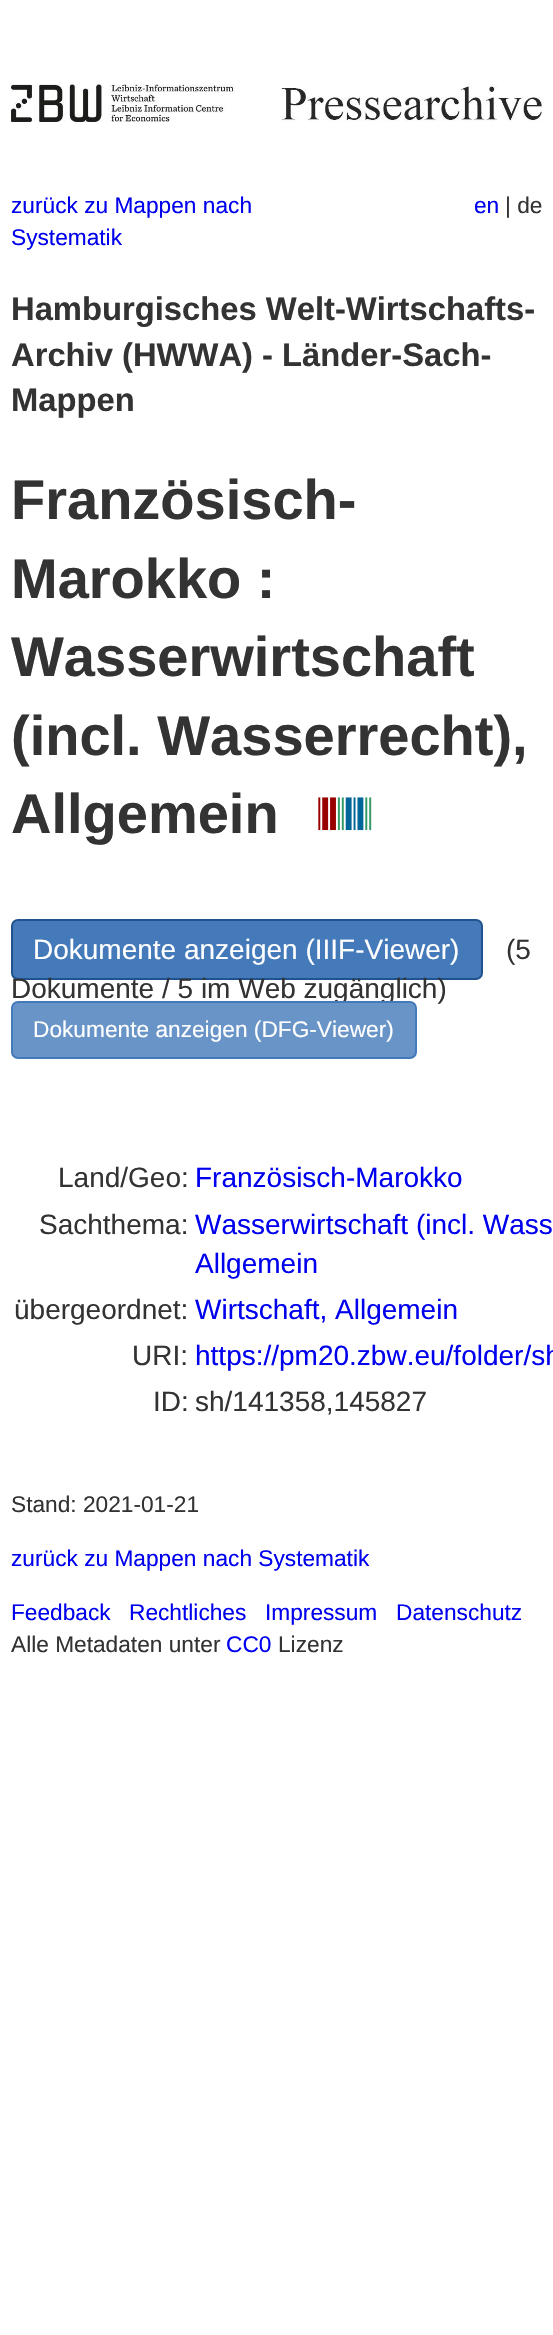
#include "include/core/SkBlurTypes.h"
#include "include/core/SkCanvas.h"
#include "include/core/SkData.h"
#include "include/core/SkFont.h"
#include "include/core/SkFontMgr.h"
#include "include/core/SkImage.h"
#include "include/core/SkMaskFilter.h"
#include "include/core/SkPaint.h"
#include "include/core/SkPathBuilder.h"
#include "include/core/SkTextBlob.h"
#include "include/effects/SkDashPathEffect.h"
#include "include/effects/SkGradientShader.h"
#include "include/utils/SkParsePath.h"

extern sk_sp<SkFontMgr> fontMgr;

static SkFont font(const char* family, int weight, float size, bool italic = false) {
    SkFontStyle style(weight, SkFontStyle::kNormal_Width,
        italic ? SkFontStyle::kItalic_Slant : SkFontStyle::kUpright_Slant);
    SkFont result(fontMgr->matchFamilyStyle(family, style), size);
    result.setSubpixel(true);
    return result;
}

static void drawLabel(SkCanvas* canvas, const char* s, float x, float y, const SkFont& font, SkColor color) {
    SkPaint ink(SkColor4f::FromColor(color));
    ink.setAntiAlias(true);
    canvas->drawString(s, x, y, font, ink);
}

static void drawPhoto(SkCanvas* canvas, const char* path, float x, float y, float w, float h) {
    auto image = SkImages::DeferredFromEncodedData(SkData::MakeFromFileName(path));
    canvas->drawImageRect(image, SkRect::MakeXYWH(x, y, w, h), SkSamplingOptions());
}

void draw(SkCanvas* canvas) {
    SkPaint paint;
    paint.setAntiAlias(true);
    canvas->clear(0xFFFFFFFF);
    drawPhoto(canvas, "assets/img1.png", 10, 84, 533, 39);
    SkFont font1 = font("Liberation Sans", 400, 22.7f);
    drawLabel(canvas, "zurück zu Mappen nach", 11, 213, font1, 0xFF0000EE);
    drawLabel(canvas, "Systematik", 11, 245, font1, 0xFF0000EE);
    drawLabel(canvas, "en", 474, 213, font1, 0xFF0000EE);
    drawLabel(canvas, "| de", 505, 213, font1, 0xFF333333);
    SkFont font2 = font("Liberation Sans", 700, 32.75f);
    drawLabel(canvas, "Hamburgisches Welt-Wirtschafts-", 11, 320, font2, 0xFF333333);
    drawLabel(canvas, "Archiv (HWWA) - Länder-Sach-", 11, 366, font2, 0xFF333333);
    drawLabel(canvas, "Mappen", 11, 411, font2, 0xFF333333);
    SkFont font3 = font("Liberation Sans", 700, 56);
    drawLabel(canvas, "Französisch-", 11, 519, font3, 0xFF333333);
    drawLabel(canvas, "Marokko :", 11, 598, font3, 0xFF333333);
    drawLabel(canvas, "Wasserwirtschaft", 11, 676, font3, 0xFF333333);
    drawLabel(canvas, "(incl. Wasserrecht),", 11, 755, font3, 0xFF333333);
    drawLabel(canvas, "Allgemein", 11, 833, font3, 0xFF333333);
    drawPhoto(canvas, "assets/img2.png", 318, 797, 54, 34);
    paint.setColor(0xFF4479BA);
    canvas->drawRoundRect(SkRect::MakeXYWH(12, 920, 470, 59), 6, 6, paint);
    paint.setStroke(true);
    paint.setStrokeWidth(2);
    paint.setColor(0xFF20538D);
    canvas->drawRoundRect(SkRect::MakeXYWH(12, 920, 470, 59), 6, 6, paint);
    SkFont font4 = font("Liberation Sans", 400, 28);
    drawLabel(canvas, "Dokumente anzeigen (IIIF-Viewer)", 33, 959, font4, 0xFFFFFFFF);
    drawLabel(canvas, "(5", 506, 959, font4, 0xFF333333);
    drawLabel(canvas, "Dokumente / 5 im Web zugänglich)", 11, 998, font4, 0xFF333333);
    paint.setStroke(false);
    paint.setColor(0xFF6994C8);
    canvas->drawRoundRect(SkRect::MakeXYWH(12, 1002, 404, 56), 6, 6, paint);
    paint.setStroke(true);
    paint.setColor(0xFF4479BA);
    canvas->drawRoundRect(SkRect::MakeXYWH(12, 1002, 404, 56), 6, 6, paint);
    drawLabel(canvas, "Dokumente anzeigen (DFG-Viewer)", 33, 1037, font1, 0xFFFFFFFF);
    drawLabel(canvas, "Land/Geo:", 58, 1187, font4, 0xFF333333);
    drawLabel(canvas, "Französisch-Marokko", 195, 1187, font4, 0xFF0000EE);
    drawLabel(canvas, "Sachthema:", 39, 1234, font4, 0xFF333333);
    drawLabel(canvas, "Wasserwirtschaft (incl. Wass", 195, 1234, font4, 0xFF0000EE);
    drawLabel(canvas, "Allgemein", 195, 1273, font4, 0xFF0000EE);
    drawLabel(canvas, "übergeordnet:", 14, 1319, font4, 0xFF333333);
    drawLabel(canvas, "Wirtschaft, Allgemein", 195, 1319, font4, 0xFF0000EE);
    drawLabel(canvas, "URI:", 132, 1365, font4, 0xFF333333);
    drawLabel(canvas, "https://pm20.zbw.eu/folder/sh", 195, 1365, font4, 0xFF0000EE);
    drawLabel(canvas, "ID:", 153, 1411, font4, 0xFF333333);
    drawLabel(canvas, "sh/141358,145827", 195, 1411, font4, 0xFF333333);
    drawLabel(canvas, "Stand: 2021-01-21", 11, 1512, font1, 0xFF333333);
    drawLabel(canvas, "zurück zu Mappen nach Systematik", 11, 1566, font1, 0xFF0000EE);
    drawLabel(canvas, "Feedback", 11, 1620, font1, 0xFF0000EE);
    drawLabel(canvas, "Rechtliches", 129, 1620, font1, 0xFF0000EE);
    drawLabel(canvas, "Impressum", 265, 1620, font1, 0xFF0000EE);
    drawLabel(canvas, "Datenschutz", 396, 1620, font1, 0xFF0000EE);
    drawLabel(canvas, "Alle Metadaten unter", 11, 1652, font1, 0xFF333333);
    drawLabel(canvas, "CC0", 226, 1652, font1, 0xFF0000EE);
    drawLabel(canvas, "Lizenz", 278, 1652, font1, 0xFF333333);
}
